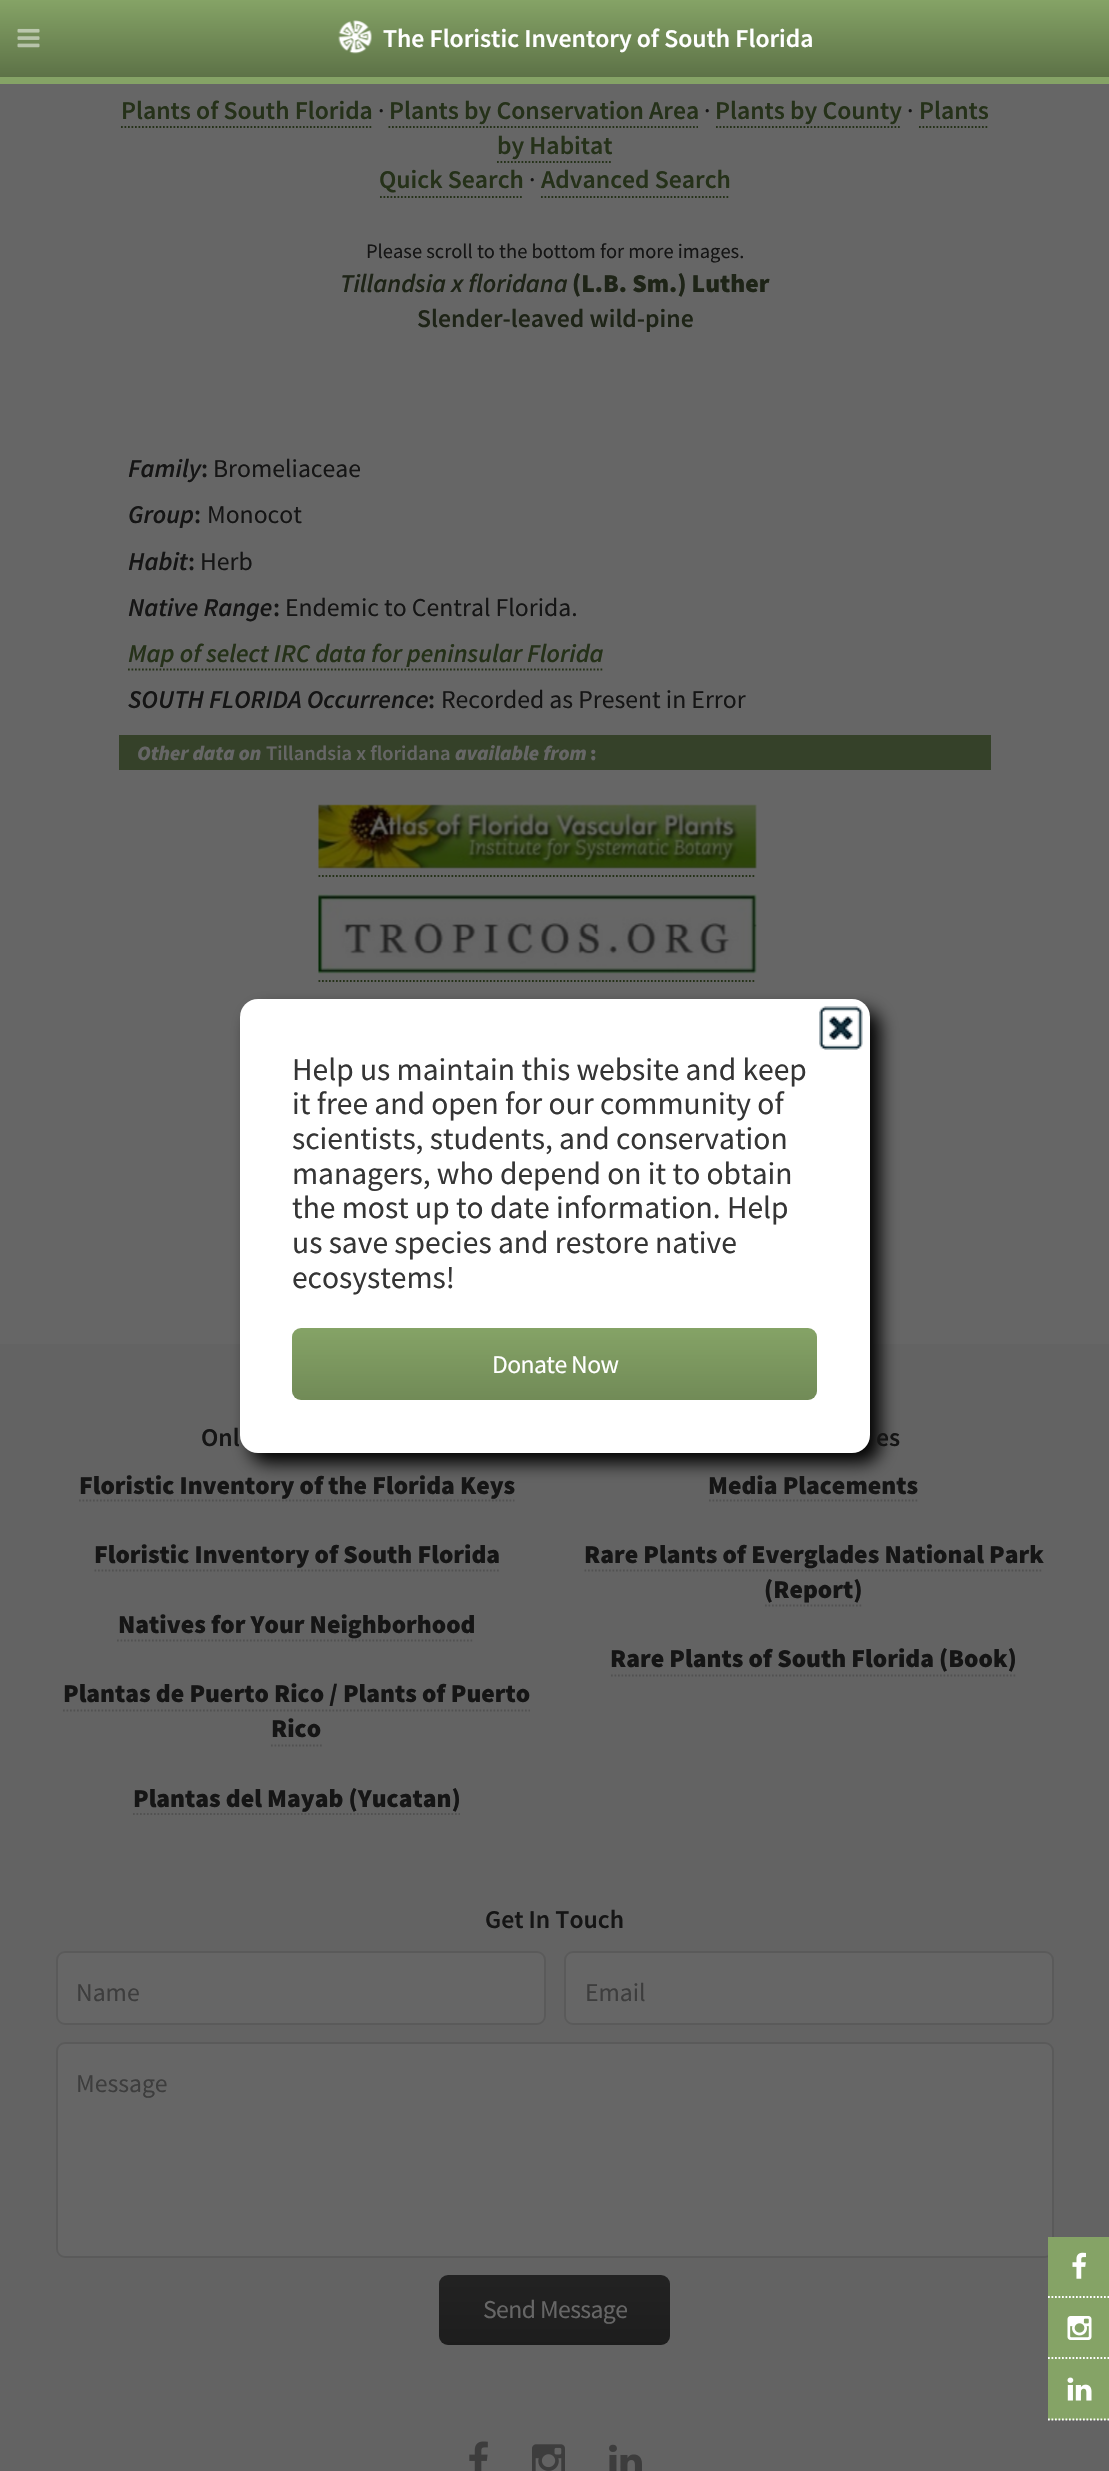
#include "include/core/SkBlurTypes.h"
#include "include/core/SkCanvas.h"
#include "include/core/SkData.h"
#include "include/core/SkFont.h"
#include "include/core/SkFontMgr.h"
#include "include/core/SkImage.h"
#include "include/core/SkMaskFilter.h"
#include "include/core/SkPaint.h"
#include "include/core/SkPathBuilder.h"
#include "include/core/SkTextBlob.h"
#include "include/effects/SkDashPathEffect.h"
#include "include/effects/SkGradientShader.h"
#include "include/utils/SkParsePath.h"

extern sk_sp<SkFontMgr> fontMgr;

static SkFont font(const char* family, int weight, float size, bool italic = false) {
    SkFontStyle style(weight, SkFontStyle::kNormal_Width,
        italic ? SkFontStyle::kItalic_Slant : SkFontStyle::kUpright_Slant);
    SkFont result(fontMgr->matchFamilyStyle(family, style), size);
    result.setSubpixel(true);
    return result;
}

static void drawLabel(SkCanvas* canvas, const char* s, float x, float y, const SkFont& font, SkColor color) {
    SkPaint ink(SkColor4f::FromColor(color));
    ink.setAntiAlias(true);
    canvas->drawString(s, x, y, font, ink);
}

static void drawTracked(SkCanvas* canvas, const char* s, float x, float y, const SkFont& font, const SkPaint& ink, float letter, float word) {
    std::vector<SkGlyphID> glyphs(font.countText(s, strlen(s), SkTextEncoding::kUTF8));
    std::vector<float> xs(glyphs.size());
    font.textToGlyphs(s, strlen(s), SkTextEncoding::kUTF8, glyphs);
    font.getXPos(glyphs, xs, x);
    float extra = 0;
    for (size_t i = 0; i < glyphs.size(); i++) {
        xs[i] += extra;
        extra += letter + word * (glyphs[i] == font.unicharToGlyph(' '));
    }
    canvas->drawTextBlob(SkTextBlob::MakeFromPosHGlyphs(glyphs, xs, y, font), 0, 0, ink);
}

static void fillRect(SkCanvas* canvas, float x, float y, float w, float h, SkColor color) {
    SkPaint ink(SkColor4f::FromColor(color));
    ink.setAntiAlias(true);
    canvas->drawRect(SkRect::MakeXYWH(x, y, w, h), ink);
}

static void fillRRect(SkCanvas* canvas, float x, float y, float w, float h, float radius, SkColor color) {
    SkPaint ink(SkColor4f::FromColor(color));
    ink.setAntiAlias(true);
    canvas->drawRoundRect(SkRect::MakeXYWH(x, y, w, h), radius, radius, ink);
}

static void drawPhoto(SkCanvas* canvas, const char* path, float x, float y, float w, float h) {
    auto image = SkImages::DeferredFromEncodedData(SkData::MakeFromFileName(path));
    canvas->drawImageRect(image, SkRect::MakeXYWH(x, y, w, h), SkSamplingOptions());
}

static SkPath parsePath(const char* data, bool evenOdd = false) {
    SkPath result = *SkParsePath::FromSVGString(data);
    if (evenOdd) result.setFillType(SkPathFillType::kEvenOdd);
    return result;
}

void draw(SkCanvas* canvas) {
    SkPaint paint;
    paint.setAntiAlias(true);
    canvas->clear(0xFF636363);
    paint.setColor(0xFF85A366);
    canvas->drawPath(parsePath("M0 77V84H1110V7V77Z"), paint);
    {
        const SkColor colors[] = {0xFF85A366, 0xFF5D7247};
        const float stops[] = {0, 1};
        const SkPoint ends[] = {{555, 0}, {555, 77}};
        paint.setShader(SkGradientShader::MakeLinear(ends, colors, stops, 2, SkTileMode::kClamp));
        paint.setAlpha(255);
    }
    canvas->drawRect(SkRect::MakeXYWH(0, 0, 1109, 77), paint);
    drawPhoto(canvas, "assets/img1.png", 17, 28, 23, 20);
    drawPhoto(canvas, "assets/img2.png", 338, 20, 34, 34);
    SkFont font1 = font("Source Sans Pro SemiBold", 600, 25.7f);
    drawLabel(canvas, "The Floristic Inventory of South Florida", 383, 47, font1, 0xFFFFFFFF);
    fillRect(canvas, 0, 84, 1109, 1260, 0xFF666666);
    drawLabel(canvas, "Plants of South Florida", 121, 119, font1, 0xFF253119);
    paint.setStroke(true);
    paint.setStrokeWidth(1.8f);
    paint.setShader(nullptr);
    paint.setColor(0xFF253119);
    paint.setPathEffect(SkDashPathEffect::Make({{1.75f, 1.75f}}, 0));
    canvas->drawPath(parsePath("M121 127H373"), paint);
    paint.setPathEffect(nullptr);
    SkFont font2 = font("Source Sans Pro", 400, 25.7f);
    drawLabel(canvas, "·", 378, 119, font2, 0xFF151515);
    drawLabel(canvas, "Plants by Conservation Area", 389, 119, font1, 0xFF253119);
    paint.setPathEffect(SkDashPathEffect::Make({{1.75f, 1.75f}}, 0));
    canvas->drawPath(parsePath("M388.5 127H698"), paint);
    paint.setPathEffect(nullptr);
    drawLabel(canvas, "·", 704, 119, font2, 0xFF151515);
    drawLabel(canvas, "Plants by County", 715, 119, font1, 0xFF253119);
    paint.setPathEffect(SkDashPathEffect::Make({{1.75f, 1.75f}}, 0));
    canvas->drawPath(parsePath("M716 127H901"), paint);
    paint.setPathEffect(nullptr);
    drawLabel(canvas, "·", 907, 119, font2, 0xFF151515);
    drawLabel(canvas, "Plants", 919, 119, font1, 0xFF253119);
    paint.setPathEffect(SkDashPathEffect::Make({{1.75f, 1.75f}}, 0));
    canvas->drawPath(parsePath("M919 127H989"), paint);
    paint.setPathEffect(nullptr);
    drawLabel(canvas, "by Habitat", 497, 154, font1, 0xFF253119);
    paint.setPathEffect(SkDashPathEffect::Make({{1.75f, 1.75f}}, 0));
    canvas->drawPath(parsePath("M497 162H612.5"), paint);
    paint.setPathEffect(nullptr);
    drawLabel(canvas, "Quick Search", 379, 188, font1, 0xFF253119);
    paint.setPathEffect(SkDashPathEffect::Make({{1.75f, 1.75f}}, 0));
    canvas->drawPath(parsePath("M380 197H523"), paint);
    paint.setPathEffect(nullptr);
    drawLabel(canvas, "·", 529, 188, font2, 0xFF151515);
    drawLabel(canvas, "Advanced Search", 541, 188, font1, 0xFF253119);
    paint.setPathEffect(SkDashPathEffect::Make({{1.75f, 1.75f}}, 0));
    canvas->drawPath(parsePath("M541 197H730"), paint);
    paint.setPathEffect(nullptr);
    SkFont font3 = font("Source Sans Pro", 400, 20.5f);
    drawLabel(canvas, "Please scroll to the bottom for more images.", 366, 258, font3, 0xFF151515);
    SkFont font4 = font("Source Sans Pro SemiBold", 600, 25.7f, true);
    drawLabel(canvas, "Tillandsia x floridana", 340, 292, font4, 0xFF1E2417);
    SkFont font5 = font("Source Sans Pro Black", 900, 25.7f);
    drawLabel(canvas, "(L.B. Sm.) Luther", 572, 292, font5, 0xFF1E2417);
    drawLabel(canvas, "Slender-leaved wild-pine", 417, 327, font1, 0xFF1E2417);
    drawLabel(canvas, "Family", 128, 477, font4, 0xFF151515);
    drawLabel(canvas, ":", 201, 477, font1, 0xFF151515);
    drawLabel(canvas, "Bromeliaceae", 213, 477, font2, 0xFF151515);
    drawLabel(canvas, "Group", 128, 523, font4, 0xFF151515);
    drawLabel(canvas, ":", 194, 523, font1, 0xFF151515);
    drawLabel(canvas, "Monocot", 207, 523, font2, 0xFF151515);
    drawLabel(canvas, "Habit", 128, 570, font4, 0xFF151515);
    drawLabel(canvas, ":", 188, 570, font1, 0xFF151515);
    drawLabel(canvas, "Herb", 200, 570, font2, 0xFF151515);
    drawLabel(canvas, "Native Range", 128, 616, font4, 0xFF151515);
    drawLabel(canvas, ":", 273, 616, font1, 0xFF151515);
    drawLabel(canvas, "Endemic to Central Florida.", 285, 616, font2, 0xFF151515);
    drawLabel(canvas, "Map of select IRC data for peninsular Florida", 128, 662, font4, 0xFF253119);
    paint.setPathEffect(SkDashPathEffect::Make({{1.75f, 1.75f}}, 0));
    canvas->drawPath(parsePath("M128 669.5H604"), paint);
    paint.setPathEffect(nullptr);
    drawLabel(canvas, "SOUTH FLORIDA Occurrence", 128, 708, font4, 0xFF151515);
    drawLabel(canvas, ":", 428, 708, font1, 0xFF151515);
    drawLabel(canvas, "Recorded as Present in Error", 441, 708, font2, 0xFF151515);
    fillRect(canvas, 119, 735, 872, 35, 0xFF354129);
    SkFont font6 = font("Source Sans Pro Black", 900, 20.5f, true);
    drawLabel(canvas, "Other data on", 137, 760, font6, 0xFF666666);
    SkFont font7 = font("Source Sans Pro SemiBold", 600, 20.5f);
    drawLabel(canvas, "Tillandsia x floridana", 266, 760, font7, 0xFF666666);
    drawLabel(canvas, "available from", 455, 760, font6, 0xFF666666);
    SkFont font8 = font("Source Sans Pro Black", 900, 20.5f);
    drawLabel(canvas, ":", 590, 760, font8, 0xFF666666);
    drawPhoto(canvas, "assets/img3.png", 318, 804, 439, 65);
    paint.setPathEffect(SkDashPathEffect::Make({{1.75f, 1.75f}}, 0));
    canvas->drawPath(parsePath("M318.5 876H756"), paint);
    paint.setPathEffect(nullptr);
    drawPhoto(canvas, "assets/img4.png", 318, 894, 439, 80);
    paint.setPathEffect(SkDashPathEffect::Make({{1.75f, 1.75f}}, 0));
    canvas->drawPath(parsePath("M318.5 981H756"), paint);
    paint.setPathEffect(nullptr);
    paint.setStroke(false);
    paint.setColor(0xFF000000);
    paint.setMaskFilter(SkMaskFilter::MakeBlur(kNormal_SkBlurStyle, 9));
    canvas->drawRoundRect(SkRect::MakeXYWH(250, 1010, 630, 453), 18, 18, paint);
    paint.setMaskFilter(nullptr);
    fillRRect(canvas, 240, 999, 630, 454, 18, 0xFFFFFFFF);
    drawPhoto(canvas, "assets/img5.png", 819, 1006, 44, 44);
    SkFont font9 = font("Source Sans Pro", 400, 31.5f);
    drawLabel(canvas, "Help us maintain this website and keep", 292, 1080, font9, 0xFF353535);
    drawLabel(canvas, "it free and open for our community of", 292, 1114, font9, 0xFF353535);
    drawLabel(canvas, "scientists, students, and conservation", 292, 1149, font9, 0xFF353535);
    drawLabel(canvas, "managers, who depend on it to obtain", 292, 1184, font9, 0xFF353535);
    drawLabel(canvas, "the most up to date information. Help", 292, 1218, font9, 0xFF353535);
    drawLabel(canvas, "us save species and restore native", 292, 1253, font9, 0xFF353535);
    drawLabel(canvas, "ecosystems!", 292, 1288, font9, 0xFF353535);
    fillRRect(canvas, 292, 1328, 525, 72, 9, 0xFF85A366);
    {
        const SkColor colors[] = {0x00000000, 0x26000000};
        const float stops[] = {0, 1};
        const SkPoint ends[] = {{555, 1328}, {555, 1400}};
        paint.setShader(SkGradientShader::MakeLinear(ends, colors, stops, 2, SkTileMode::kClamp));
        paint.setAlpha(255);
    }
    canvas->drawRoundRect(SkRect::MakeXYWH(292, 1328, 525, 72), 9, 9, paint);
    paint.setShader(nullptr);
    paint.setColor(0xFFFFFFFF);
    drawTracked(canvas, "Donate Now", 492, 1373, font2, paint, -0.6f, 0);
    drawLabel(canvas, "Onl", 201, 1446, font1, 0xFF151515);
    drawLabel(canvas, "Floristic Inventory of the Florida Keys", 79, 1494, font5, 0xFF151515);
    paint.setStroke(true);
    paint.setColor(0xFF515151);
    paint.setPathEffect(SkDashPathEffect::Make({{1.75f, 1.75f}}, 0));
    canvas->drawPath(parsePath("M79 1500.5H514.5"), paint);
    paint.setPathEffect(nullptr);
    drawLabel(canvas, "Floristic Inventory of South Florida", 94, 1563, font5, 0xFF151515);
    paint.setPathEffect(SkDashPathEffect::Make({{1.75f, 1.75f}}, 0));
    canvas->drawPath(parsePath("M94.5 1570.5H499"), paint);
    paint.setPathEffect(nullptr);
    drawLabel(canvas, "Natives for Your Neighborhood", 118, 1633, font5, 0xFF151515);
    paint.setPathEffect(SkDashPathEffect::Make({{1.75f, 1.75f}}, 0));
    canvas->drawPath(parsePath("M117 1640.5H474"), paint);
    paint.setPathEffect(nullptr);
    drawLabel(canvas, "Plantas de Puerto Rico / Plants of Puerto", 63, 1702, font5, 0xFF151515);
    paint.setPathEffect(SkDashPathEffect::Make({{1.75f, 1.75f}}, 0));
    canvas->drawPath(parsePath("M63 1710.5H530"), paint);
    paint.setPathEffect(nullptr);
    drawLabel(canvas, "Rico", 271, 1737, font5, 0xFF151515);
    paint.setPathEffect(SkDashPathEffect::Make({{1.75f, 1.75f}}, 0));
    canvas->drawPath(parsePath("M271 1745.5H322"), paint);
    paint.setPathEffect(nullptr);
    drawLabel(canvas, "Plantas del Mayab (Yucatan)", 133, 1807, font5, 0xFF151515);
    paint.setPathEffect(SkDashPathEffect::Make({{1.75f, 1.75f}}, 0));
    canvas->drawPath(parsePath("M133 1814H460"), paint);
    paint.setPathEffect(nullptr);
    drawLabel(canvas, "es", 876, 1446, font1, 0xFF151515);
    drawLabel(canvas, "Media Placements", 708, 1494, font5, 0xFF151515);
    paint.setPathEffect(SkDashPathEffect::Make({{1.75f, 1.75f}}, 0));
    canvas->drawPath(parsePath("M709 1500.5H919"), paint);
    paint.setPathEffect(nullptr);
    drawLabel(canvas, "Rare Plants of Everglades National Park", 584, 1563, font5, 0xFF151515);
    paint.setPathEffect(SkDashPathEffect::Make({{1.75f, 1.75f}}, 0));
    canvas->drawPath(parsePath("M584.5 1570.5H1043"), paint);
    paint.setPathEffect(nullptr);
    drawLabel(canvas, "(Report)", 764, 1598, font5, 0xFF151515);
    paint.setPathEffect(SkDashPathEffect::Make({{1.75f, 1.75f}}, 0));
    canvas->drawPath(parsePath("M765 1605.5H863"), paint);
    paint.setPathEffect(nullptr);
    drawLabel(canvas, "Rare Plants of South Florida (Book)", 610, 1667, font5, 0xFF151515);
    paint.setPathEffect(SkDashPathEffect::Make({{1.75f, 1.75f}}, 0));
    canvas->drawPath(parsePath("M611 1675.5H1017"), paint);
    paint.setPathEffect(nullptr);
    drawLabel(canvas, "Get In Touch", 485, 1928, font1, 0xFF151515);
    paint.setStroke(false);
    paint.setColor(0xFF666666);
    canvas->drawRoundRect(SkRect::MakeXYWH(57, 1952, 488, 72), 8, 8, paint);
    paint.setStroke(true);
    paint.setStrokeWidth(2);
    paint.setColor(0xFF5A5A5A);
    canvas->drawRoundRect(SkRect::MakeXYWH(57, 1952, 488, 72), 8, 8, paint);
    drawLabel(canvas, "Name", 76, 2001, font2, 0xFF3D3D3D);
    paint.setStroke(false);
    paint.setColor(0xFF666666);
    canvas->drawRoundRect(SkRect::MakeXYWH(565, 1952, 488, 72), 8, 8, paint);
    paint.setStroke(true);
    paint.setColor(0xFF5A5A5A);
    canvas->drawRoundRect(SkRect::MakeXYWH(565, 1952, 488, 72), 8, 8, paint);
    drawLabel(canvas, "Email", 585, 2001, font2, 0xFF3D3D3D);
    paint.setStroke(false);
    paint.setColor(0xFF666666);
    canvas->drawRoundRect(SkRect::MakeXYWH(57, 2043, 996, 214), 8, 8, paint);
    paint.setStroke(true);
    paint.setColor(0xFF5A5A5A);
    canvas->drawRoundRect(SkRect::MakeXYWH(57, 2043, 996, 214), 8, 8, paint);
    drawLabel(canvas, "Message", 76, 2092, font2, 0xFF3D3D3D);
    fillRRect(canvas, 439, 2275, 231, 70, 9, 0xFF222222);
    paint.setStroke(false);
    {
        const SkColor colors[] = {0x00000000, 0x26000000};
        const float stops[] = {0, 1};
        const SkPoint ends[] = {{555, 2275}, {555, 2345}};
        paint.setShader(SkGradientShader::MakeLinear(ends, colors, stops, 2, SkTileMode::kClamp));
        paint.setAlpha(255);
    }
    canvas->drawRoundRect(SkRect::MakeXYWH(439, 2275, 231, 70), 9, 9, paint);
    paint.setShader(nullptr);
    paint.setColor(0xFF666666);
    drawTracked(canvas, "Send Message", 483, 2318, font2, paint, -0.6f, 0);
    drawPhoto(canvas, "assets/img6.png", 469, 2441, 19, 30);
    drawPhoto(canvas, "assets/img7.png", 532, 2444, 33, 27);
    drawPhoto(canvas, "assets/img8.png", 609, 2444, 33, 27);
    fillRect(canvas, 1048, 2237, 61, 183, 0xFF85A366);
    paint.setStroke(true);
    paint.setStrokeWidth(1.8f);
    paint.setColor(0xFFFFFFFF);
    paint.setPathEffect(SkDashPathEffect::Make({{1.75f, 1.75f}}, 0));
    canvas->drawPath(parsePath("M1048 2297H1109.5"), paint);
    paint.setPathEffect(nullptr);
    drawPhoto(canvas, "assets/img9.png", 1072, 2252, 14, 27);
    paint.setPathEffect(SkDashPathEffect::Make({{1.75f, 1.75f}}, 0));
    canvas->drawPath(parsePath("M1048 2358H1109.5"), paint);
    paint.setPathEffect(nullptr);
    drawPhoto(canvas, "assets/img10.png", 1067, 2316, 25, 24);
    paint.setPathEffect(SkDashPathEffect::Make({{1.75f, 1.75f}}, 0));
    canvas->drawPath(parsePath("M1048 2419.5H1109.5"), paint);
    paint.setPathEffect(nullptr);
    drawPhoto(canvas, "assets/img11.png", 1067, 2377, 25, 24);
}
